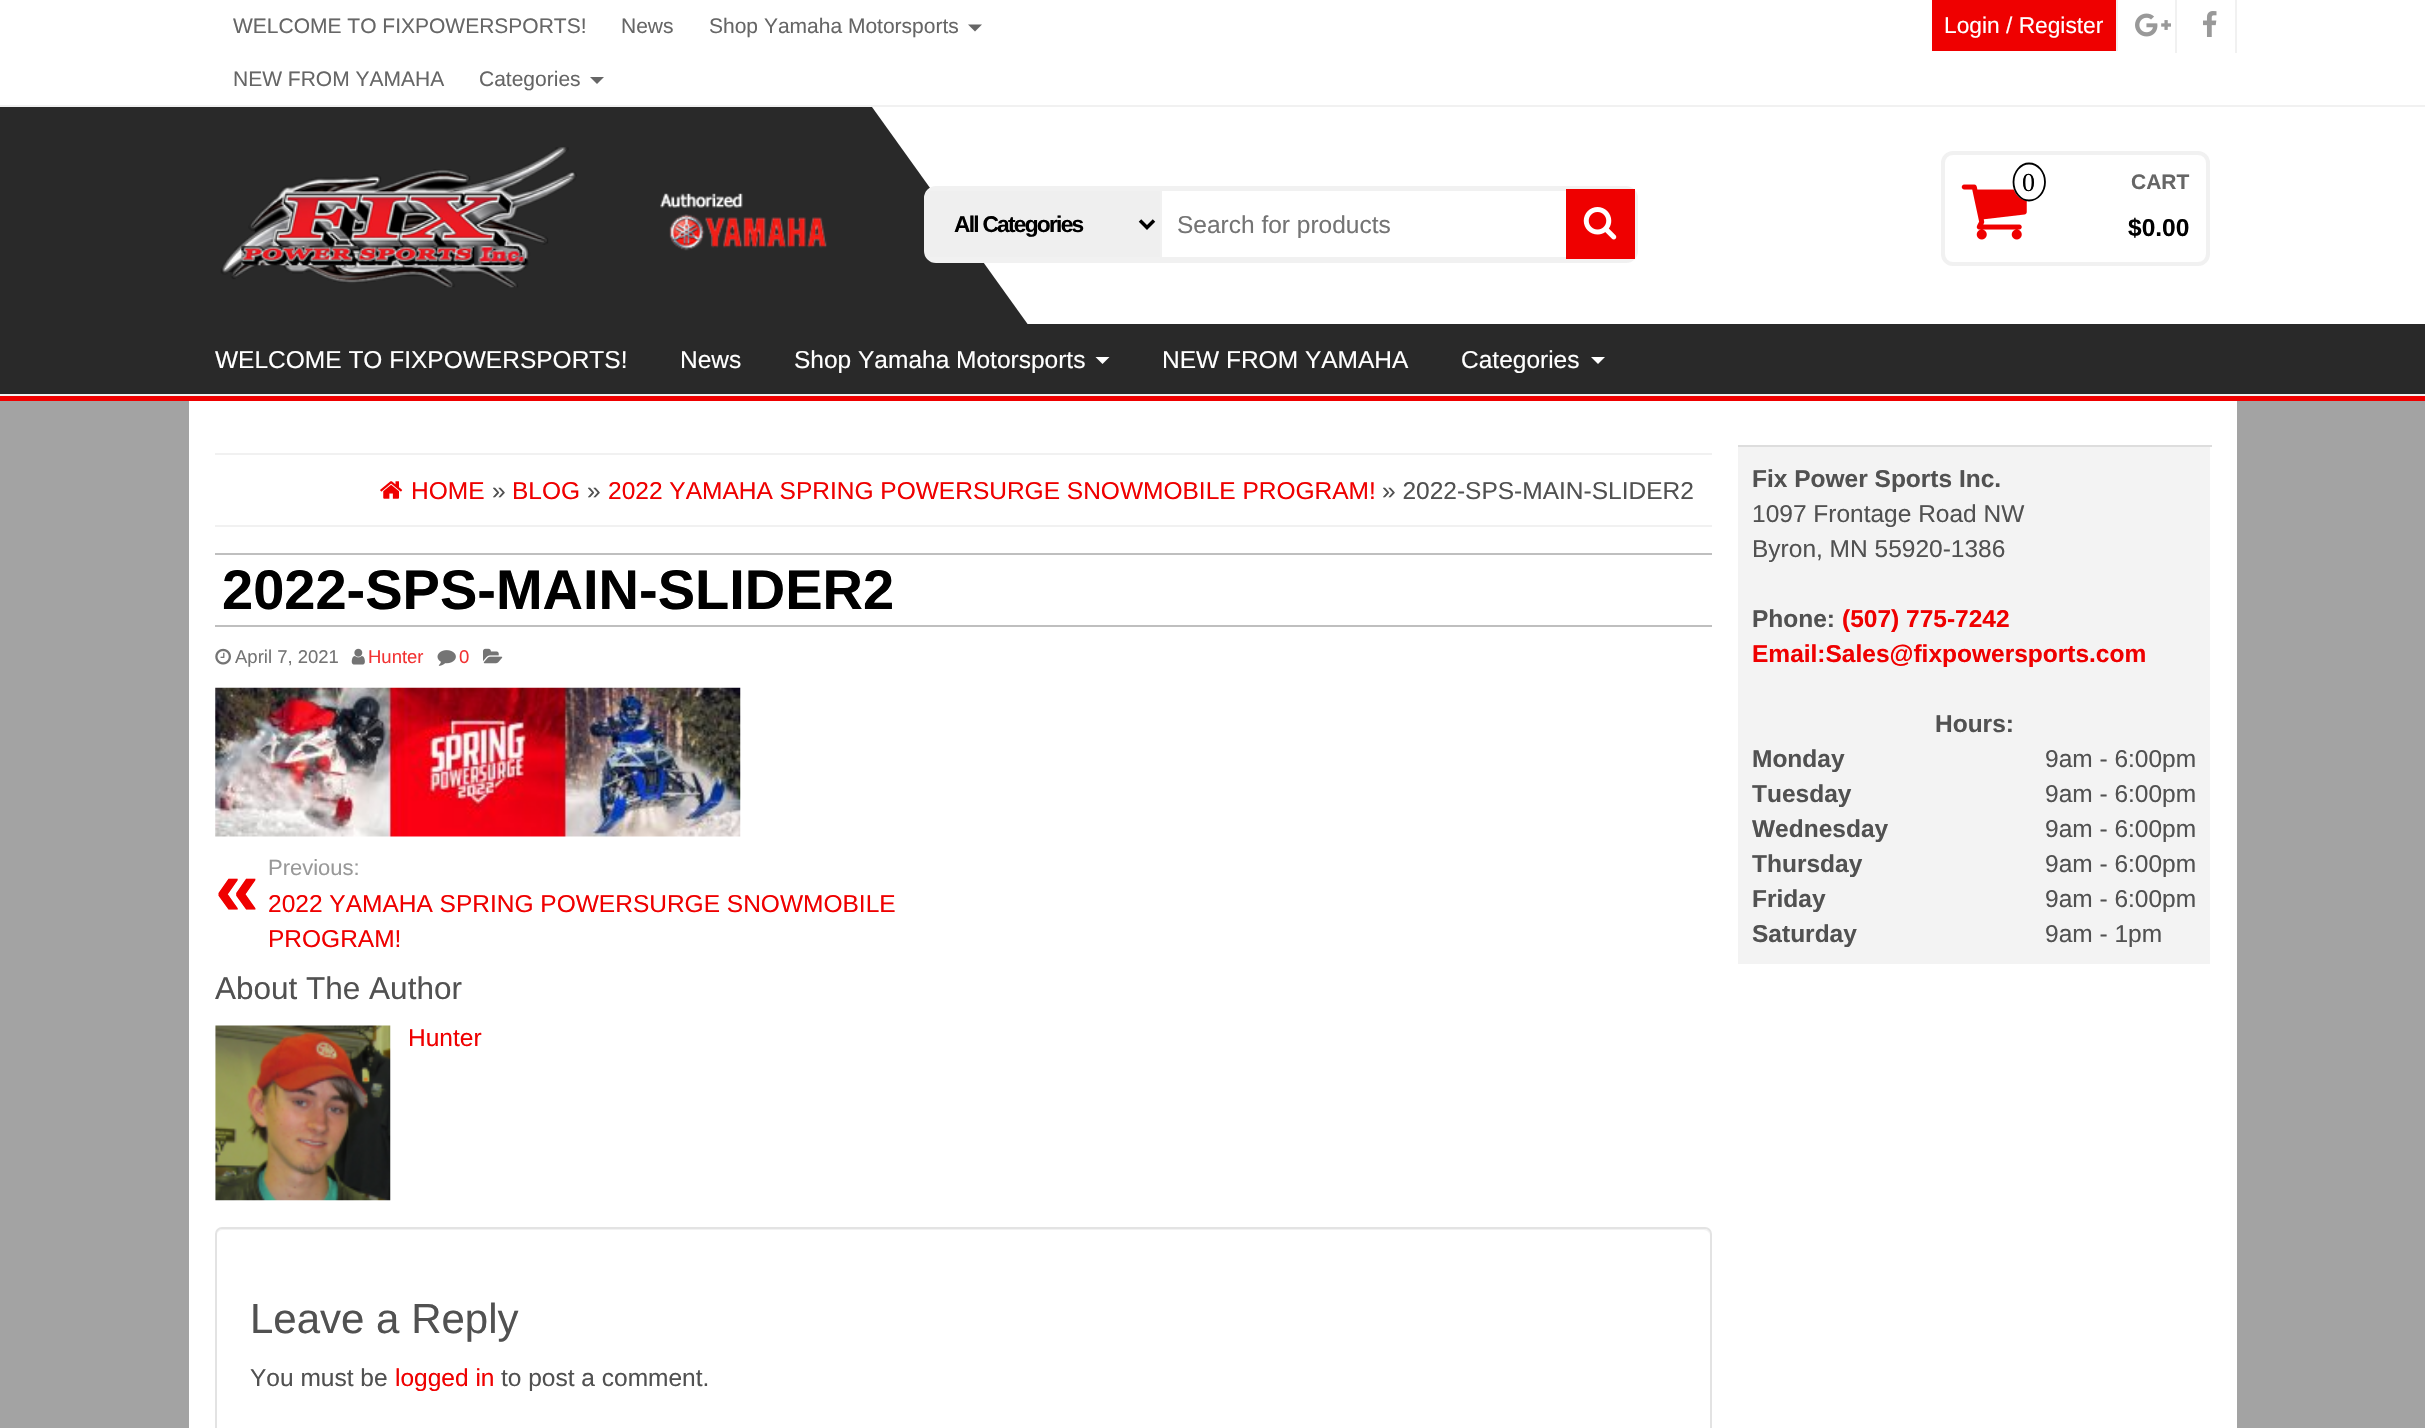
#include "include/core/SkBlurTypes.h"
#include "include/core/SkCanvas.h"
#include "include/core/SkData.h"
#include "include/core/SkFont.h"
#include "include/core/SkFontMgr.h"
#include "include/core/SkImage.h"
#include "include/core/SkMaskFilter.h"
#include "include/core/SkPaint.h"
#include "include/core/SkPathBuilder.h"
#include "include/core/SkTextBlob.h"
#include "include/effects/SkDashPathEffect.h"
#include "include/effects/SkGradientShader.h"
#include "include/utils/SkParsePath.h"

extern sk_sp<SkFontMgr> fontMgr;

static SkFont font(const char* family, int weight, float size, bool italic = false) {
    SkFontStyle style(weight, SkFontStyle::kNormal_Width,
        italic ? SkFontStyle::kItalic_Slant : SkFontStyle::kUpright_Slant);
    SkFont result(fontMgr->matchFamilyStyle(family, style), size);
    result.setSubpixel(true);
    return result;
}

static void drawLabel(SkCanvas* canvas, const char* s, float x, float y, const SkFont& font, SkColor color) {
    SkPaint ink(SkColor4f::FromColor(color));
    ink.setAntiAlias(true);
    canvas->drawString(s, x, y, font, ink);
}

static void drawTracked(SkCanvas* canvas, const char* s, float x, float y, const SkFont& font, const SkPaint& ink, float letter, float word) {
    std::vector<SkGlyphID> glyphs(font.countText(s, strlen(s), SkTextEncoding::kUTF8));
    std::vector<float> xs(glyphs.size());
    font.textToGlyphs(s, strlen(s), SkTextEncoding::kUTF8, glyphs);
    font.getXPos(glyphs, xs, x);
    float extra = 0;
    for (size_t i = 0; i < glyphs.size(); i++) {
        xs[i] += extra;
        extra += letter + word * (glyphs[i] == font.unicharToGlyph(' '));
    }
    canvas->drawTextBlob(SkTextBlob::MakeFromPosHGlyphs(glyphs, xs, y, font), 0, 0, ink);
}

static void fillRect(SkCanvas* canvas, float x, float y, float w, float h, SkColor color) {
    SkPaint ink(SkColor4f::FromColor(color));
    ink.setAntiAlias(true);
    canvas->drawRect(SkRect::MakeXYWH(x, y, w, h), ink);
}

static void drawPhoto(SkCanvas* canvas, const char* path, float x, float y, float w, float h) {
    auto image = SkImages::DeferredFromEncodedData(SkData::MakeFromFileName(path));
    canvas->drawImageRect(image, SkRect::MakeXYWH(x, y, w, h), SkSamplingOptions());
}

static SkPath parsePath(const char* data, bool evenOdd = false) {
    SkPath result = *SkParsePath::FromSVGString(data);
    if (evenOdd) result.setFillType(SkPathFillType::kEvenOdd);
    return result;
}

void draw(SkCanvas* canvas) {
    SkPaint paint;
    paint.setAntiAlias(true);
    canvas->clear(0xFFA3A3A3);
    fillRect(canvas, 0, 396, 2425, 5, 0xFFEF0000);
    fillRect(canvas, 0, 0, 2425, 105, 0xFFFFFFFF);
    fillRect(canvas, 0, 105, 2425, 2, 0xFFF1F1F1);
    SkFont font1 = font("Liberation Sans", 400, 21);
    drawLabel(canvas, "WELCOME TO FIXPOWERSPORTS!", 233, 33, font1, 0xFF666666);
    drawLabel(canvas, "News", 621, 33, font1, 0xFF666666);
    drawLabel(canvas, "Shop Yamaha Motorsports", 709, 33, font1, 0xFF666666);
    paint.setColor(0xFF666666);
    canvas->drawPath(parsePath("M968 24.5H982L975 31.5Z"), paint);
    drawLabel(canvas, "NEW FROM YAMAHA", 233, 86, font1, 0xFF666666);
    drawLabel(canvas, "Categories", 479, 86, font1, 0xFF666666);
    canvas->drawPath(parsePath("M590 77H604L597 84Z"), paint);
    fillRect(canvas, 1932, 0, 184, 51, 0xFFEF0000);
    SkFont font2 = font("Liberation Sans", 400, 22.75f);
    drawLabel(canvas, "Login / Register", 1944, 33, font2, 0xFFFFFFFF);
    fillRect(canvas, 2116, 0, 2, 51, 0xFFF1F1F1);
    fillRect(canvas, 2175, 0, 2, 53, 0xFFF1F1F1);
    drawPhoto(canvas, "assets/img1.png", 2135, 13, 36, 24);
    fillRect(canvas, 2235, 0, 2, 53, 0xFFF1F1F1);
    drawPhoto(canvas, "assets/img2.png", 2203, 11, 14, 26);
    fillRect(canvas, 0, 107, 2425, 287, 0xFF292929);
    fillRect(canvas, 0, 394, 2425, 2, 0xFFF1F1F1);
    drawPhoto(canvas, "assets/img3.png", 220, 147, 607, 141);
    fillRect(canvas, 872, 107, 1553, 217, 0xFFFFFFFF);
    paint.setColor(0xFF292929);
    canvas->drawPath(parsePath("M872 326V107L1029 326Z"), paint);
    paint.setStroke(true);
    paint.setStrokeWidth(4);
    paint.setColor(0xFFF1F1F1);
    canvas->drawRoundRect(SkRect::MakeXYWH(926, 188, 710, 73), 10, 10, paint);
    paint.setStroke(false);
    paint.setColor(0xFFEFEFEF);
    canvas->drawRect(SkRect::MakeXYWH(929, 190, 232, 68), paint);
    paint.setStroke(true);
    paint.setStrokeWidth(2);
    paint.setColor(0xFFF1F1F1);
    canvas->drawRect(SkRect::MakeXYWH(929, 190, 232, 68), paint);
    paint.setStrokeWidth(3.5f);
    paint.setColor(0xFF000000);
    canvas->drawPath(parsePath("M1140 220.5L1147 227.5L1154 220.5"), paint);
    SkFont font3 = font("Liberation Sans", 700, 22.75f);
    paint.setStroke(false);
    drawTracked(canvas, "All Categories", 954, 232, font3, paint, -1.75f, 0);
    paint.setStroke(true);
    paint.setStrokeWidth(2);
    paint.setColor(0xFFF1F1F1);
    canvas->drawRect(SkRect::MakeXYWH(1161, 190, 469, 68), paint);
    SkFont font4 = font("Liberation Sans", 400, 24.5f);
    drawLabel(canvas, "Search for products", 1177, 233, font4, 0xFF747474);
    fillRect(canvas, 1566, 189, 69, 70, 0xFFEF0000);
    drawPhoto(canvas, "assets/img4.png", 1583, 207, 34, 33);
    paint.setStrokeWidth(4);
    canvas->drawRoundRect(SkRect::MakeXYWH(1943, 153, 265, 111), 10, 10, paint);
    drawPhoto(canvas, "assets/img5.png", 1961, 184, 66, 56);
    paint.setStroke(false);
    paint.setColor(0xFFFFFFFF);
    canvas->drawOval(SkRect::MakeXYWH(2012.5f, 163, 33, 38), paint);
    paint.setStroke(true);
    paint.setStrokeWidth(1.8f);
    paint.setColor(0xFF000000);
    canvas->drawPath(parsePath("M2029 163.5C2038 163.5 2045 172 2045 182C2045 192 2038 200.5 2029 200.5C2020.5 200.5 2013.5 192 2013.5 182C2013.5 172 2020.5 163.5 2029 163.5Z"), paint);
    SkFont font5 = font("Liberation Serif", 400, 26);
    drawLabel(canvas, "0", 2022, 191, font5, 0xFF000000);
    SkFont font6 = font("Liberation Sans", 700, 21);
    drawLabel(canvas, "CART", 2131, 189, font6, 0xFF666666);
    SkFont font7 = font("Liberation Sans", 700, 24.5f);
    drawLabel(canvas, "$0.00", 2128, 236, font7, 0xFF000000);
    drawLabel(canvas, "WELCOME TO FIXPOWERSPORTS!", 215, 368, font4, 0xFFFFFFFF);
    drawLabel(canvas, "News", 680, 368, font4, 0xFFFFFFFF);
    drawLabel(canvas, "Shop Yamaha Motorsports", 794, 368, font4, 0xFFFFFFFF);
    paint.setStroke(false);
    paint.setColor(0xFFFFFFFF);
    canvas->drawPath(parsePath("M1095.5 357H1109.5L1102.5 364Z"), paint);
    drawLabel(canvas, "NEW FROM YAMAHA", 1162, 368, font4, 0xFFFFFFFF);
    drawLabel(canvas, "Categories", 1461, 368, font4, 0xFFFFFFFF);
    canvas->drawPath(parsePath("M1591 357H1605L1598 364Z"), paint);
    fillRect(canvas, 189, 401, 2048, 1027, 0xFFFFFFFF);
    fillRect(canvas, 215, 453, 1497, 2, 0xFFF1F1F1);
    fillRect(canvas, 215, 525, 1497, 2, 0xFFF1F1F1);
    drawPhoto(canvas, "assets/img6.png", 380, 481, 23, 18);
    drawLabel(canvas, "HOME", 411, 499, font4, 0xFFEF0000);
    drawLabel(canvas, "»", 492, 499, font4, 0xFF515151);
    drawLabel(canvas, "BLOG", 512, 499, font4, 0xFFEF0000);
    drawLabel(canvas, "»", 587, 499, font4, 0xFF515151);
    drawLabel(canvas, "2022 YAMAHA SPRING POWERSURGE SNOWMOBILE PROGRAM!", 608, 499, font4, 0xFFEF0000);
    drawLabel(canvas, "» 2022-SPS-MAIN-SLIDER2", 1382, 499, font4, 0xFF515151);
    fillRect(canvas, 215, 553, 1497, 2, 0xFFBFBFBF);
    fillRect(canvas, 215, 625, 1497, 2, 0xFFBFBFBF);
    SkFont font8 = font("Liberation Sans", 700, 56);
    drawLabel(canvas, "2022-SPS-MAIN-SLIDER2", 222, 609, font8, 0xFF000000);
    drawPhoto(canvas, "assets/img7.png", 215, 648, 16, 17);
    SkFont font9 = font("Liberation Sans", 400, 18.5f);
    drawLabel(canvas, "April 7, 2021", 235, 663, font9, 0xFF747474);
    drawPhoto(canvas, "assets/img8.png", 351, 648, 14, 17);
    drawLabel(canvas, "Hunter", 368, 663, font9, 0xFFF23333);
    drawPhoto(canvas, "assets/img9.png", 437, 650, 19, 16);
    drawLabel(canvas, "0", 459, 663, font9, 0xFFF23333);
    drawPhoto(canvas, "assets/img10.png", 483, 648, 20, 16);
    drawPhoto(canvas, "assets/img11.png", 215, 687, 526, 150);
    SkFont font10 = font("Liberation Sans", 400, 22);
    drawLabel(canvas, "Previous:", 268, 875, font10, 0xFF999999);
    SkFont font11 = font("Liberation Sans", 700, 79);
    drawLabel(canvas, "«", 215, 915, font11, 0xFFEF0000);
    drawLabel(canvas, "2022 YAMAHA SPRING POWERSURGE SNOWMOBILE", 268, 912, font4, 0xFFEF0000);
    drawLabel(canvas, "PROGRAM!", 268, 947, font4, 0xFFEF0000);
    SkFont font12 = font("Liberation Sans", 400, 31.5f);
    drawLabel(canvas, "About The Author", 215, 999, font12, 0xFF515151);
    drawPhoto(canvas, "assets/img12.png", 215, 1025, 176, 176);
    drawLabel(canvas, "Hunter", 408, 1046, font4, 0xFFEF0000);
    paint.setColor(0xFFF2F2F2);
    canvas->drawPath(parsePath("M222 1230H1704C1707 1230 1710 1233 1710 1236C1710 1233 1709 1229 1705 1229H222C218 1229 217 1233 217 1236C217 1233 219 1230 222 1230Z"), paint);
    paint.setStroke(true);
    paint.setStrokeWidth(2);
    paint.setColor(0xFFE3E3E3);
    canvas->drawRoundRect(SkRect::MakeXYWH(216, 1228, 1495, 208), 6, 6, paint);
    SkFont font13 = font("Liberation Sans", 400, 42);
    drawLabel(canvas, "Leave a Reply", 250, 1333, font13, 0xFF515151);
    drawLabel(canvas, "You must be", 250, 1386, font4, 0xFF515151);
    drawLabel(canvas, "logged in", 395, 1386, font4, 0xFFEF0000);
    drawLabel(canvas, "to post a comment.", 501, 1386, font4, 0xFF515151);
    fillRect(canvas, 1738, 447, 472, 517, 0xFFF3F3F3);
    fillRect(canvas, 1738, 445, 474, 2, 0xFFDDDDDD);
    drawLabel(canvas, "Fix Power Sports Inc.", 1752, 487, font7, 0xFF515151);
    drawLabel(canvas, "1097 Frontage Road NW", 1752, 522, font4, 0xFF515151);
    drawLabel(canvas, "Byron, MN 55920-1386", 1752, 557, font4, 0xFF515151);
    drawLabel(canvas, "Phone:", 1752, 627, font7, 0xFF515151);
    drawLabel(canvas, "(507) 775-7242", 1842, 627, font7, 0xFFEF0000);
    drawLabel(canvas, "Email:Sales@fixpowersports.com", 1752, 662, font7, 0xFFEF0000);
    drawLabel(canvas, "Hours:", 1935, 732, font7, 0xFF515151);
    drawLabel(canvas, "Monday", 1752, 767, font7, 0xFF515151);
    drawLabel(canvas, "Tuesday", 1752, 802, font7, 0xFF515151);
    drawLabel(canvas, "Wednesday", 1752, 837, font7, 0xFF515151);
    drawLabel(canvas, "Thursday", 1752, 872, font7, 0xFF515151);
    drawLabel(canvas, "Friday", 1752, 907, font7, 0xFF515151);
    drawLabel(canvas, "Saturday", 1752, 942, font7, 0xFF515151);
    drawLabel(canvas, "9am - 6:00pm", 2045, 767, font4, 0xFF515151);
    drawLabel(canvas, "9am - 6:00pm", 2045, 802, font4, 0xFF515151);
    drawLabel(canvas, "9am - 6:00pm", 2045, 837, font4, 0xFF515151);
    drawLabel(canvas, "9am - 6:00pm", 2045, 872, font4, 0xFF515151);
    drawLabel(canvas, "9am - 6:00pm", 2045, 907, font4, 0xFF515151);
    drawLabel(canvas, "9am - 1pm", 2045, 942, font4, 0xFF515151);
}
